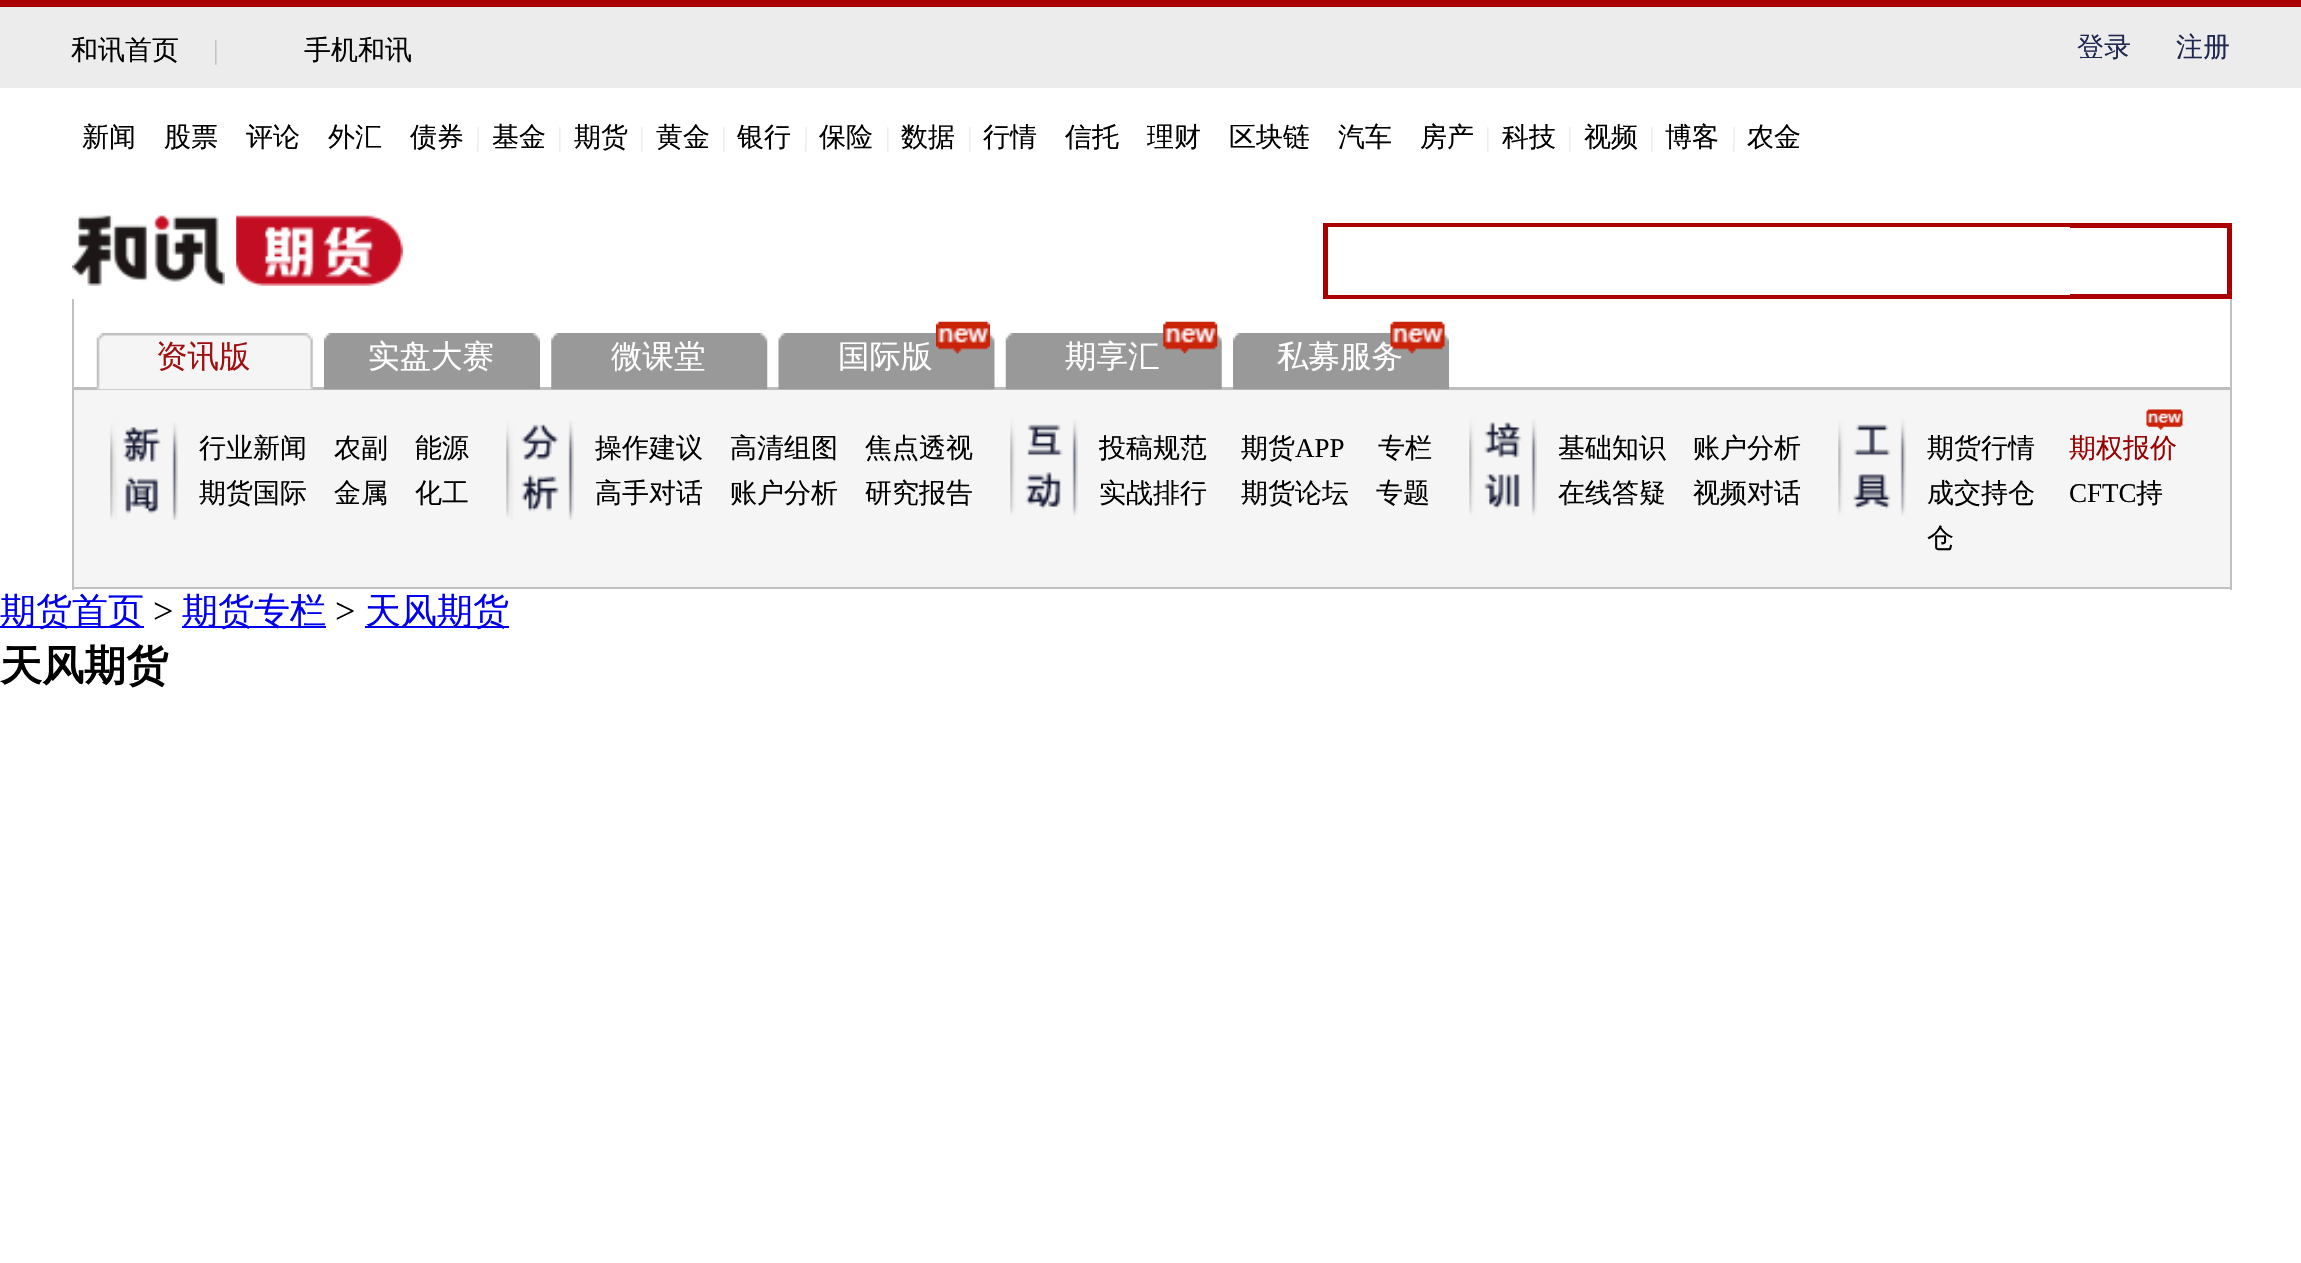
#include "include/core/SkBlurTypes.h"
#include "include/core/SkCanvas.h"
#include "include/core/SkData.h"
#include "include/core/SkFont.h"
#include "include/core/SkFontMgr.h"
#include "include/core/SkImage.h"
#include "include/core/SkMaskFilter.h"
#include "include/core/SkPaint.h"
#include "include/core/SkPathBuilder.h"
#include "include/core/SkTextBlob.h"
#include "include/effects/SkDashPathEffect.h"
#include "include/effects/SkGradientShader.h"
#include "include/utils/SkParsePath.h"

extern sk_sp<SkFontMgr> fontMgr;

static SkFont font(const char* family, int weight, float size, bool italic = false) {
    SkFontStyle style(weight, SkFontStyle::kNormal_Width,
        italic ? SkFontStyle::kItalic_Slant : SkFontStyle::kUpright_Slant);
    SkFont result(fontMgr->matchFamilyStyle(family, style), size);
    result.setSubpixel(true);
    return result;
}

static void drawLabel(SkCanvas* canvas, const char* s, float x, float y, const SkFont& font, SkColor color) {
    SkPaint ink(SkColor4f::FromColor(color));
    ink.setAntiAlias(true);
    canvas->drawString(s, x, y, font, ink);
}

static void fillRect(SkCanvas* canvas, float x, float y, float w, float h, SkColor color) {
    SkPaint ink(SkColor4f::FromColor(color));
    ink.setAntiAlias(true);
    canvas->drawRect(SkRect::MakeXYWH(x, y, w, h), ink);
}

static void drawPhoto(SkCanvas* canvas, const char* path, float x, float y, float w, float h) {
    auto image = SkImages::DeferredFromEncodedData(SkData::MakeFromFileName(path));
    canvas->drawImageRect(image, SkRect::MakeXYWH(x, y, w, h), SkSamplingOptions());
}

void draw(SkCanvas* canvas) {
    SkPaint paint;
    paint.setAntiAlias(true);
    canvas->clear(0xFFFFFFFF);
    fillRect(canvas, 0, 7, 2301, 81, 0xFFECECEC);
    fillRect(canvas, 0, 0, 2301, 7, 0xFFAA0000);
    SkFont font1 = font("WenQuanYi Zen Hei", 500, 27);
    drawLabel(canvas, "和讯首页", 71, 59, font1, 0xFF000000);
    SkFont font2 = font("Liberation Serif", 400, 27);
    drawLabel(canvas, "|", 213, 59, font2, 0xFFC3C3C3);
    drawLabel(canvas, "手机和讯", 304, 59, font1, 0xFF000000);
    drawLabel(canvas, "登录", 2077, 56, font1, 0xFF1E2850);
    drawLabel(canvas, "注册", 2176, 56, font1, 0xFF1E2850);
    drawLabel(canvas, "新闻", 82, 146, font1, 0xFF000000);
    drawLabel(canvas, "股票", 164, 146, font1, 0xFF000000);
    drawLabel(canvas, "评论", 246, 146, font1, 0xFF000000);
    drawLabel(canvas, "外汇", 328, 146, font1, 0xFF000000);
    drawLabel(canvas, "债券", 410, 146, font1, 0xFF000000);
    drawLabel(canvas, "|", 475, 146, font2, 0xFFEDEDED);
    drawLabel(canvas, "基金", 492, 146, font1, 0xFF000000);
    drawLabel(canvas, "|", 557, 146, font2, 0xFFEDEDED);
    drawLabel(canvas, "期货", 574, 146, font1, 0xFF000000);
    drawLabel(canvas, "|", 639, 146, font2, 0xFFEDEDED);
    drawLabel(canvas, "黄金", 656, 146, font1, 0xFF000000);
    drawLabel(canvas, "|", 721, 146, font2, 0xFFEDEDED);
    drawLabel(canvas, "银行", 737, 146, font1, 0xFF000000);
    drawLabel(canvas, "|", 803, 146, font2, 0xFFEDEDED);
    drawLabel(canvas, "保险", 819, 146, font1, 0xFF000000);
    drawLabel(canvas, "|", 885, 146, font2, 0xFFEDEDED);
    drawLabel(canvas, "数据", 901, 146, font1, 0xFF000000);
    drawLabel(canvas, "|", 967, 146, font2, 0xFFEDEDED);
    drawLabel(canvas, "行情", 983, 146, font1, 0xFF000000);
    drawLabel(canvas, "信托", 1065, 146, font1, 0xFF000000);
    drawLabel(canvas, "理财", 1147, 146, font1, 0xFF000000);
    drawLabel(canvas, "区块链", 1229, 146, font1, 0xFF000000);
    drawLabel(canvas, "汽车", 1338, 146, font1, 0xFF000000);
    drawLabel(canvas, "房产", 1420, 146, font1, 0xFF000000);
    drawLabel(canvas, "|", 1485, 146, font2, 0xFFEDEDED);
    drawLabel(canvas, "科技", 1502, 146, font1, 0xFF000000);
    drawLabel(canvas, "|", 1567, 146, font2, 0xFFEDEDED);
    drawLabel(canvas, "视频", 1584, 146, font1, 0xFF000000);
    drawLabel(canvas, "|", 1649, 146, font2, 0xFFEDEDED);
    drawLabel(canvas, "博客", 1665, 146, font1, 0xFF000000);
    drawLabel(canvas, "|", 1731, 146, font2, 0xFFEDEDED);
    drawLabel(canvas, "农金", 1747, 146, font1, 0xFF000000);
    drawPhoto(canvas, "assets/img1.png", 72, 215, 153, 71);
    drawPhoto(canvas, "assets/img2.png", 236, 215, 167, 71);
    paint.setStroke(true);
    paint.setStrokeWidth(5);
    paint.setColor(0xFFAA0000);
    canvas->drawRect(SkRect::MakeXYWH(1325.5f, 225.5f, 904, 71), paint);
    fillRect(canvas, 1328, 227, 742, 68, 0xFFFFFFFF);
    fillRect(canvas, 2230, 299, 2, 291, 0xFFC1C1C1);
    fillRect(canvas, 72, 587, 2160, 2, 0xFFC1C1C1);
    fillRect(canvas, 72, 299, 2, 291, 0xFFC1C1C1);
    fillRect(canvas, 74, 387, 2156, 3, 0xFFBEBEBE);
    drawPhoto(canvas, "assets/img3.png", 96, 333, 217, 57);
    SkFont font3 = font("WenQuanYi Zen Hei", 500, 31.5f);
    drawLabel(canvas, "资讯版", 156, 367, font3, 0xFF9F1010);
    drawPhoto(canvas, "assets/img4.png", 324, 333, 216, 57);
    drawLabel(canvas, "实盘大赛", 368, 367, font3, 0xFFFFFFFF);
    drawPhoto(canvas, "assets/img5.png", 551, 333, 217, 57);
    drawLabel(canvas, "微课堂", 611, 367, font3, 0xFFFFFFFF);
    drawPhoto(canvas, "assets/img6.png", 778, 333, 217, 57);
    drawLabel(canvas, "国际版", 838, 367, font3, 0xFFFFFFFF);
    drawPhoto(canvas, "assets/img7.png", 936, 321, 54, 33);
    drawPhoto(canvas, "assets/img8.png", 1005, 333, 217, 57);
    drawLabel(canvas, "期享汇", 1065, 367, font3, 0xFFFFFFFF);
    drawPhoto(canvas, "assets/img9.png", 1163, 321, 55, 33);
    drawPhoto(canvas, "assets/img10.png", 1233, 333, 216, 57);
    drawLabel(canvas, "私募服务", 1277, 367, font3, 0xFFFFFFFF);
    drawPhoto(canvas, "assets/img11.png", 1390, 321, 55, 33);
    fillRect(canvas, 74, 390, 2156, 197, 0xFFF5F5F5);
    drawPhoto(canvas, "assets/img12.png", 110, 422, 68, 98);
    drawLabel(canvas, "行业新闻", 199, 457, font1, 0xFF000000);
    drawLabel(canvas, "农副", 334, 457, font1, 0xFF000000);
    drawLabel(canvas, "能源", 415, 457, font1, 0xFF000000);
    drawLabel(canvas, "期货国际", 199, 502, font1, 0xFF000000);
    drawLabel(canvas, "金属", 334, 502, font1, 0xFF000000);
    drawLabel(canvas, "化工", 415, 502, font1, 0xFF000000);
    drawPhoto(canvas, "assets/img13.png", 506, 420, 68, 100);
    drawLabel(canvas, "操作建议", 595, 457, font1, 0xFF000000);
    drawLabel(canvas, "高清组图", 730, 457, font1, 0xFF000000);
    drawLabel(canvas, "焦点透视", 865, 457, font1, 0xFF000000);
    drawLabel(canvas, "高手对话", 595, 502, font1, 0xFF000000);
    drawLabel(canvas, "账户分析", 730, 502, font1, 0xFF000000);
    drawLabel(canvas, "研究报告", 865, 502, font1, 0xFF000000);
    drawPhoto(canvas, "assets/img14.png", 1010, 419, 68, 97);
    drawLabel(canvas, "投稿规范", 1099, 457, font1, 0xFF000000);
    drawLabel(canvas, "期货", 1241, 457, font1, 0xFF000000);
    drawLabel(canvas, "APP", 1295, 457, font2, 0xFF000000);
    drawLabel(canvas, "专栏", 1378, 457, font1, 0xFF000000);
    drawLabel(canvas, "实战排行", 1099, 502, font1, 0xFF000000);
    drawLabel(canvas, "期货论坛", 1241, 502, font1, 0xFF000000);
    drawLabel(canvas, "专题", 1376, 502, font1, 0xFF000000);
    drawPhoto(canvas, "assets/img15.png", 1469, 419, 68, 97);
    drawLabel(canvas, "基础知识", 1558, 457, font1, 0xFF000000);
    drawLabel(canvas, "账户分析", 1693, 457, font1, 0xFF000000);
    drawLabel(canvas, "在线答疑", 1558, 502, font1, 0xFF000000);
    drawLabel(canvas, "视频对话", 1693, 502, font1, 0xFF000000);
    drawPhoto(canvas, "assets/img16.png", 1838, 419, 68, 97);
    drawLabel(canvas, "期货行情", 1927, 457, font1, 0xFF000000);
    drawPhoto(canvas, "assets/img17.png", 2146, 409, 37, 21);
    drawLabel(canvas, "期权报价", 2069, 457, font1, 0xFF990000);
    drawLabel(canvas, "成交持仓", 1927, 502, font1, 0xFF000000);
    drawLabel(canvas, "CFTC", 2069, 502, font2, 0xFF000000);
    drawLabel(canvas, "持", 2136, 502, font1, 0xFF000000);
    drawLabel(canvas, "仓", 1927, 547, font1, 0xFF000000);
    fillRect(canvas, 0, 626, 144, 2, 0xFF0000EE);
    SkFont font4 = font("WenQuanYi Zen Hei", 500, 36);
    drawLabel(canvas, "期货首页", 0, 623, font4, 0xFF0000EE);
    SkFont font5 = font("Liberation Serif", 400, 36);
    drawLabel(canvas, ">", 153, 623, font5, 0xFF000000);
    fillRect(canvas, 182, 626, 144, 2, 0xFF0000EE);
    drawLabel(canvas, "期货专栏", 182, 623, font4, 0xFF0000EE);
    drawLabel(canvas, ">", 335, 623, font5, 0xFF000000);
    fillRect(canvas, 365, 626, 144, 2, 0xFF0000EE);
    drawLabel(canvas, "天风期货", 365, 623, font4, 0xFF0000EE);
    SkFont font6 = font("WenQuanYi Zen Hei", 700, 42);
    drawLabel(canvas, "天风期货", 0, 680, font6, 0xFF000000);
}
